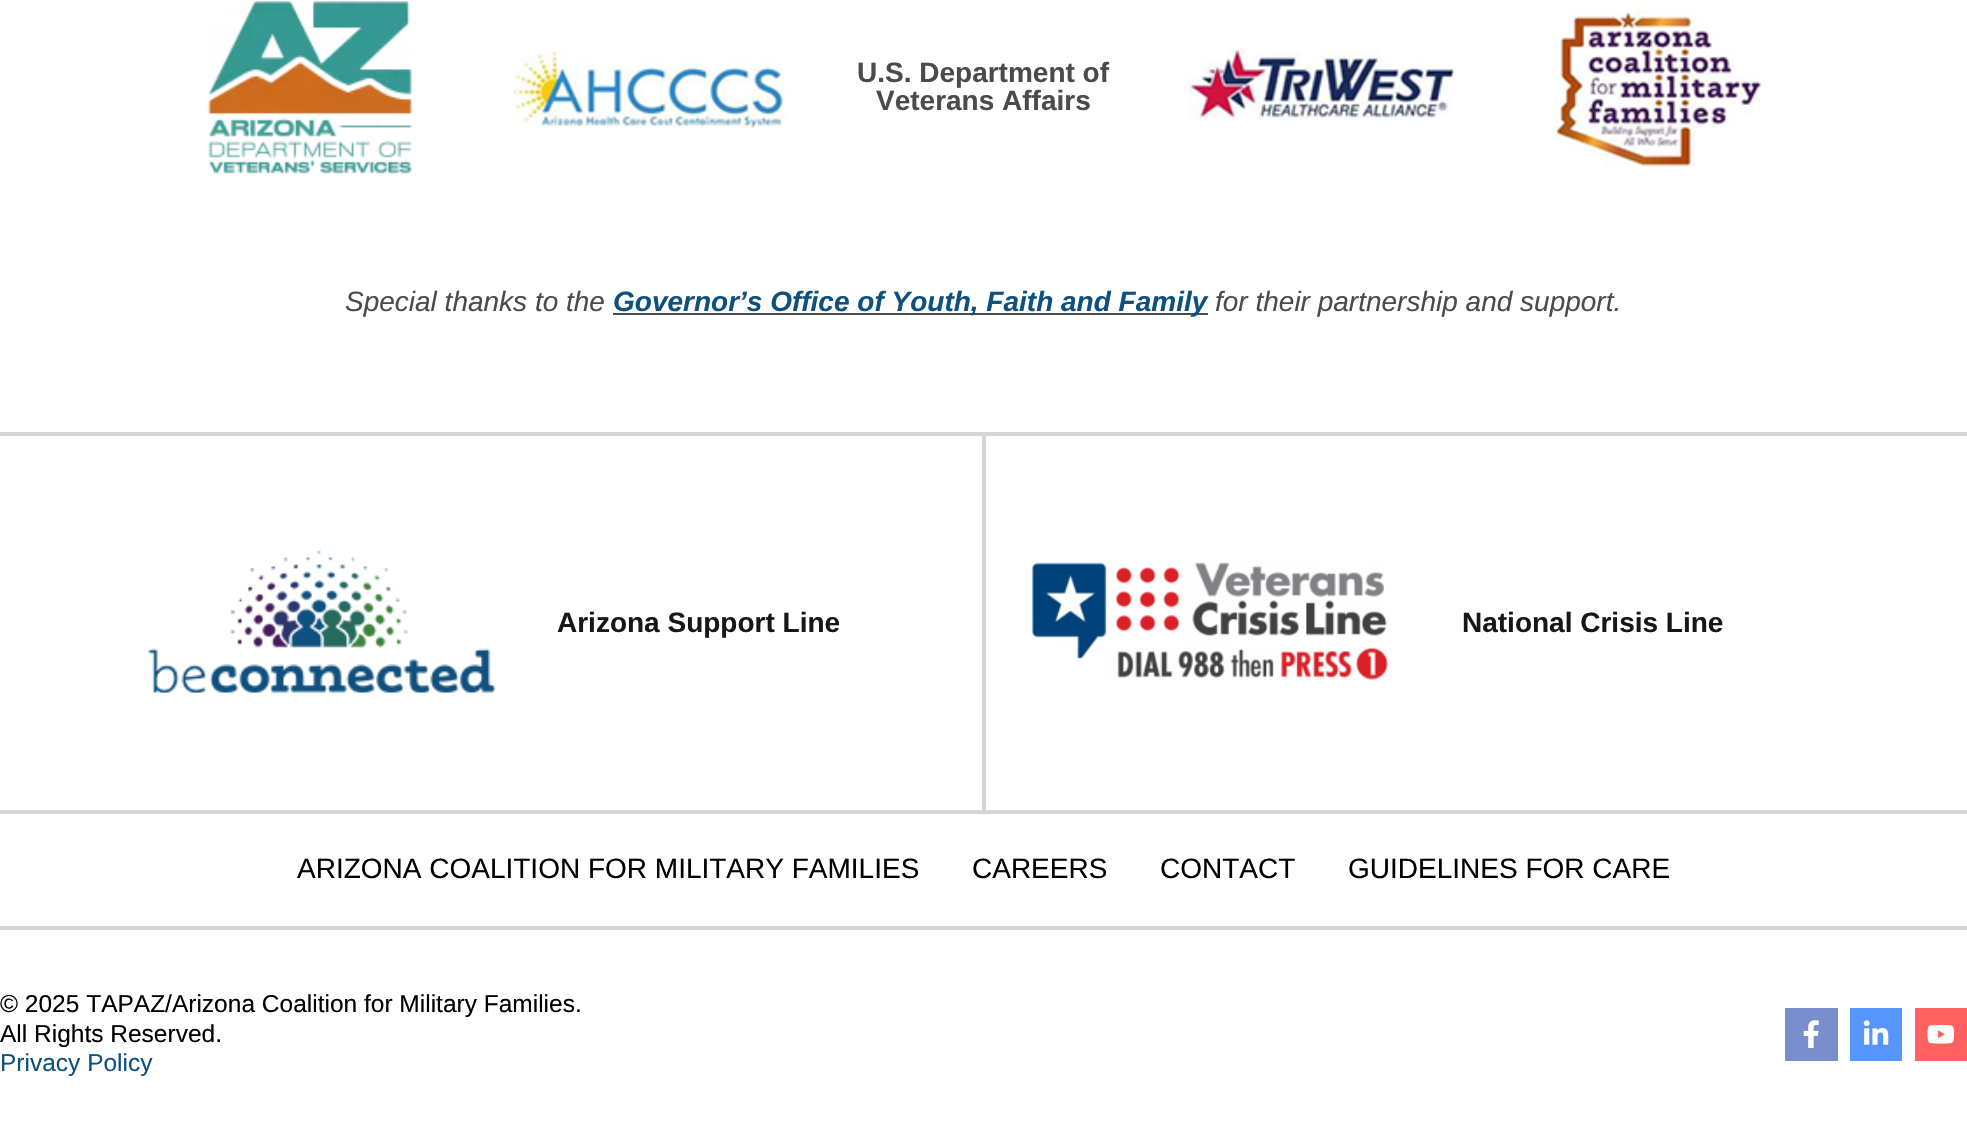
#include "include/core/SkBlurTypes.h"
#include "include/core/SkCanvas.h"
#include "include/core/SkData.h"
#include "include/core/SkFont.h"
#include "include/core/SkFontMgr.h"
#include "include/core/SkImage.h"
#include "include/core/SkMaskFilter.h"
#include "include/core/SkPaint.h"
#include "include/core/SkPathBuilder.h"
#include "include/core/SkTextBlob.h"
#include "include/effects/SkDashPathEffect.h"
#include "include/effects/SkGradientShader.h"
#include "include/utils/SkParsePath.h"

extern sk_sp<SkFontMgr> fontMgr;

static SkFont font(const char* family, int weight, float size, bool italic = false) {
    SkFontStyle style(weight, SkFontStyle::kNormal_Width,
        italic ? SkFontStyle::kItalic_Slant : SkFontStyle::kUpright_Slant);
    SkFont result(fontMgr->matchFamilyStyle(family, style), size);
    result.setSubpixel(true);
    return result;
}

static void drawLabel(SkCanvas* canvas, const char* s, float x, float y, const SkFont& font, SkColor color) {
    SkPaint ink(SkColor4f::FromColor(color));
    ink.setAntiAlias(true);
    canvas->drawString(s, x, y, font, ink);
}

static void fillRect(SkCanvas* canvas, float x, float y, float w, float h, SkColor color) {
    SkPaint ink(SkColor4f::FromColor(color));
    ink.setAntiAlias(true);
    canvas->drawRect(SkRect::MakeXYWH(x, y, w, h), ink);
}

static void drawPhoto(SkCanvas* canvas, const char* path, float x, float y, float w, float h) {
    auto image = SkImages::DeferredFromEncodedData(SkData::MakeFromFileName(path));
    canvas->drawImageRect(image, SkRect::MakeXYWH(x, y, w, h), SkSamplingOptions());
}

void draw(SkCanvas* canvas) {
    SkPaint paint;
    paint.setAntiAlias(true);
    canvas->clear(0xFFFFFFFF);
    drawPhoto(canvas, "assets/img1.png", 207, 0, 205, 174);
    drawPhoto(canvas, "assets/img2.png", 512, 50, 274, 79);
    SkFont font1 = font("Liberation Sans", 700, 28);
    drawLabel(canvas, "U.S. Department of", 857, 82, font1, 0xFF4B4B4B);
    drawLabel(canvas, "Veterans Affairs", 876, 110, font1, 0xFF4B4B4B);
    drawPhoto(canvas, "assets/img3.png", 1188, 48, 267, 72);
    drawPhoto(canvas, "assets/img4.png", 1552, 9, 209, 158);
    SkFont font2 = font("Liberation Sans", 400, 28, true);
    drawLabel(canvas, "Special thanks to the", 345, 311, font2, 0xFF4B4B4B);
    fillRect(canvas, 613, 313, 595, 2, 0xFF4B4B4B);
    SkFont font3 = font("Liberation Sans", 700, 28, true);
    drawLabel(canvas, "Governor’s Office of Youth, Faith and Family", 613, 311, font3, 0xFF0E517F);
    drawLabel(canvas, "for their partnership and support.", 1215, 311, font2, 0xFF4B4B4B);
    fillRect(canvas, 0, 432, 1967, 4, 0xFFD5D5D5);
    fillRect(canvas, 982, 436, 4, 374, 0xFFD5D5D5);
    drawPhoto(canvas, "assets/img5.png", 148, 550, 348, 143);
    drawLabel(canvas, "Arizona Support Line", 557, 632, font1, 0xFF171717);
    drawPhoto(canvas, "assets/img6.png", 1031, 562, 357, 118);
    drawLabel(canvas, "National Crisis Line", 1462, 632, font1, 0xFF171717);
    fillRect(canvas, 0, 810, 1967, 4, 0xFFD5D5D5);
    SkFont font4 = font("Liberation Sans", 400, 28);
    drawLabel(canvas, "ARIZONA COALITION FOR MILITARY FAMILIES", 297, 878, font4, 0xFF000000);
    drawLabel(canvas, "CAREERS", 972, 878, font4, 0xFF000000);
    drawLabel(canvas, "CONTACT", 1160, 878, font4, 0xFF000000);
    drawLabel(canvas, "GUIDELINES FOR CARE", 1348, 878, font4, 0xFF000000);
    fillRect(canvas, 0, 926, 1967, 4, 0xFFD5D5D5);
    SkFont font5 = font("Liberation Sans", 400, 24.5f);
    drawLabel(canvas, "© 2025 TAPAZ/Arizona Coalition for Military Families.", 0, 1012, font5, 0xFF000000);
    drawLabel(canvas, "All Rights Reserved.", 0, 1042, font5, 0xFF000000);
    drawLabel(canvas, "Privacy Policy", 0, 1071, font5, 0xFF0E517F);
    fillRect(canvas, 1785, 1008, 53, 53, 0xFF798FCD);
    drawPhoto(canvas, "assets/img7.png", 1803, 1020, 16, 28);
    fillRect(canvas, 1850, 1008, 52, 53, 0xFF5896FF);
    drawPhoto(canvas, "assets/img8.png", 1863, 1020, 26, 25);
    fillRect(canvas, 1915, 1008, 52, 53, 0xFFFF6060);
    drawPhoto(canvas, "assets/img9.png", 1927, 1024, 27, 20);
}
